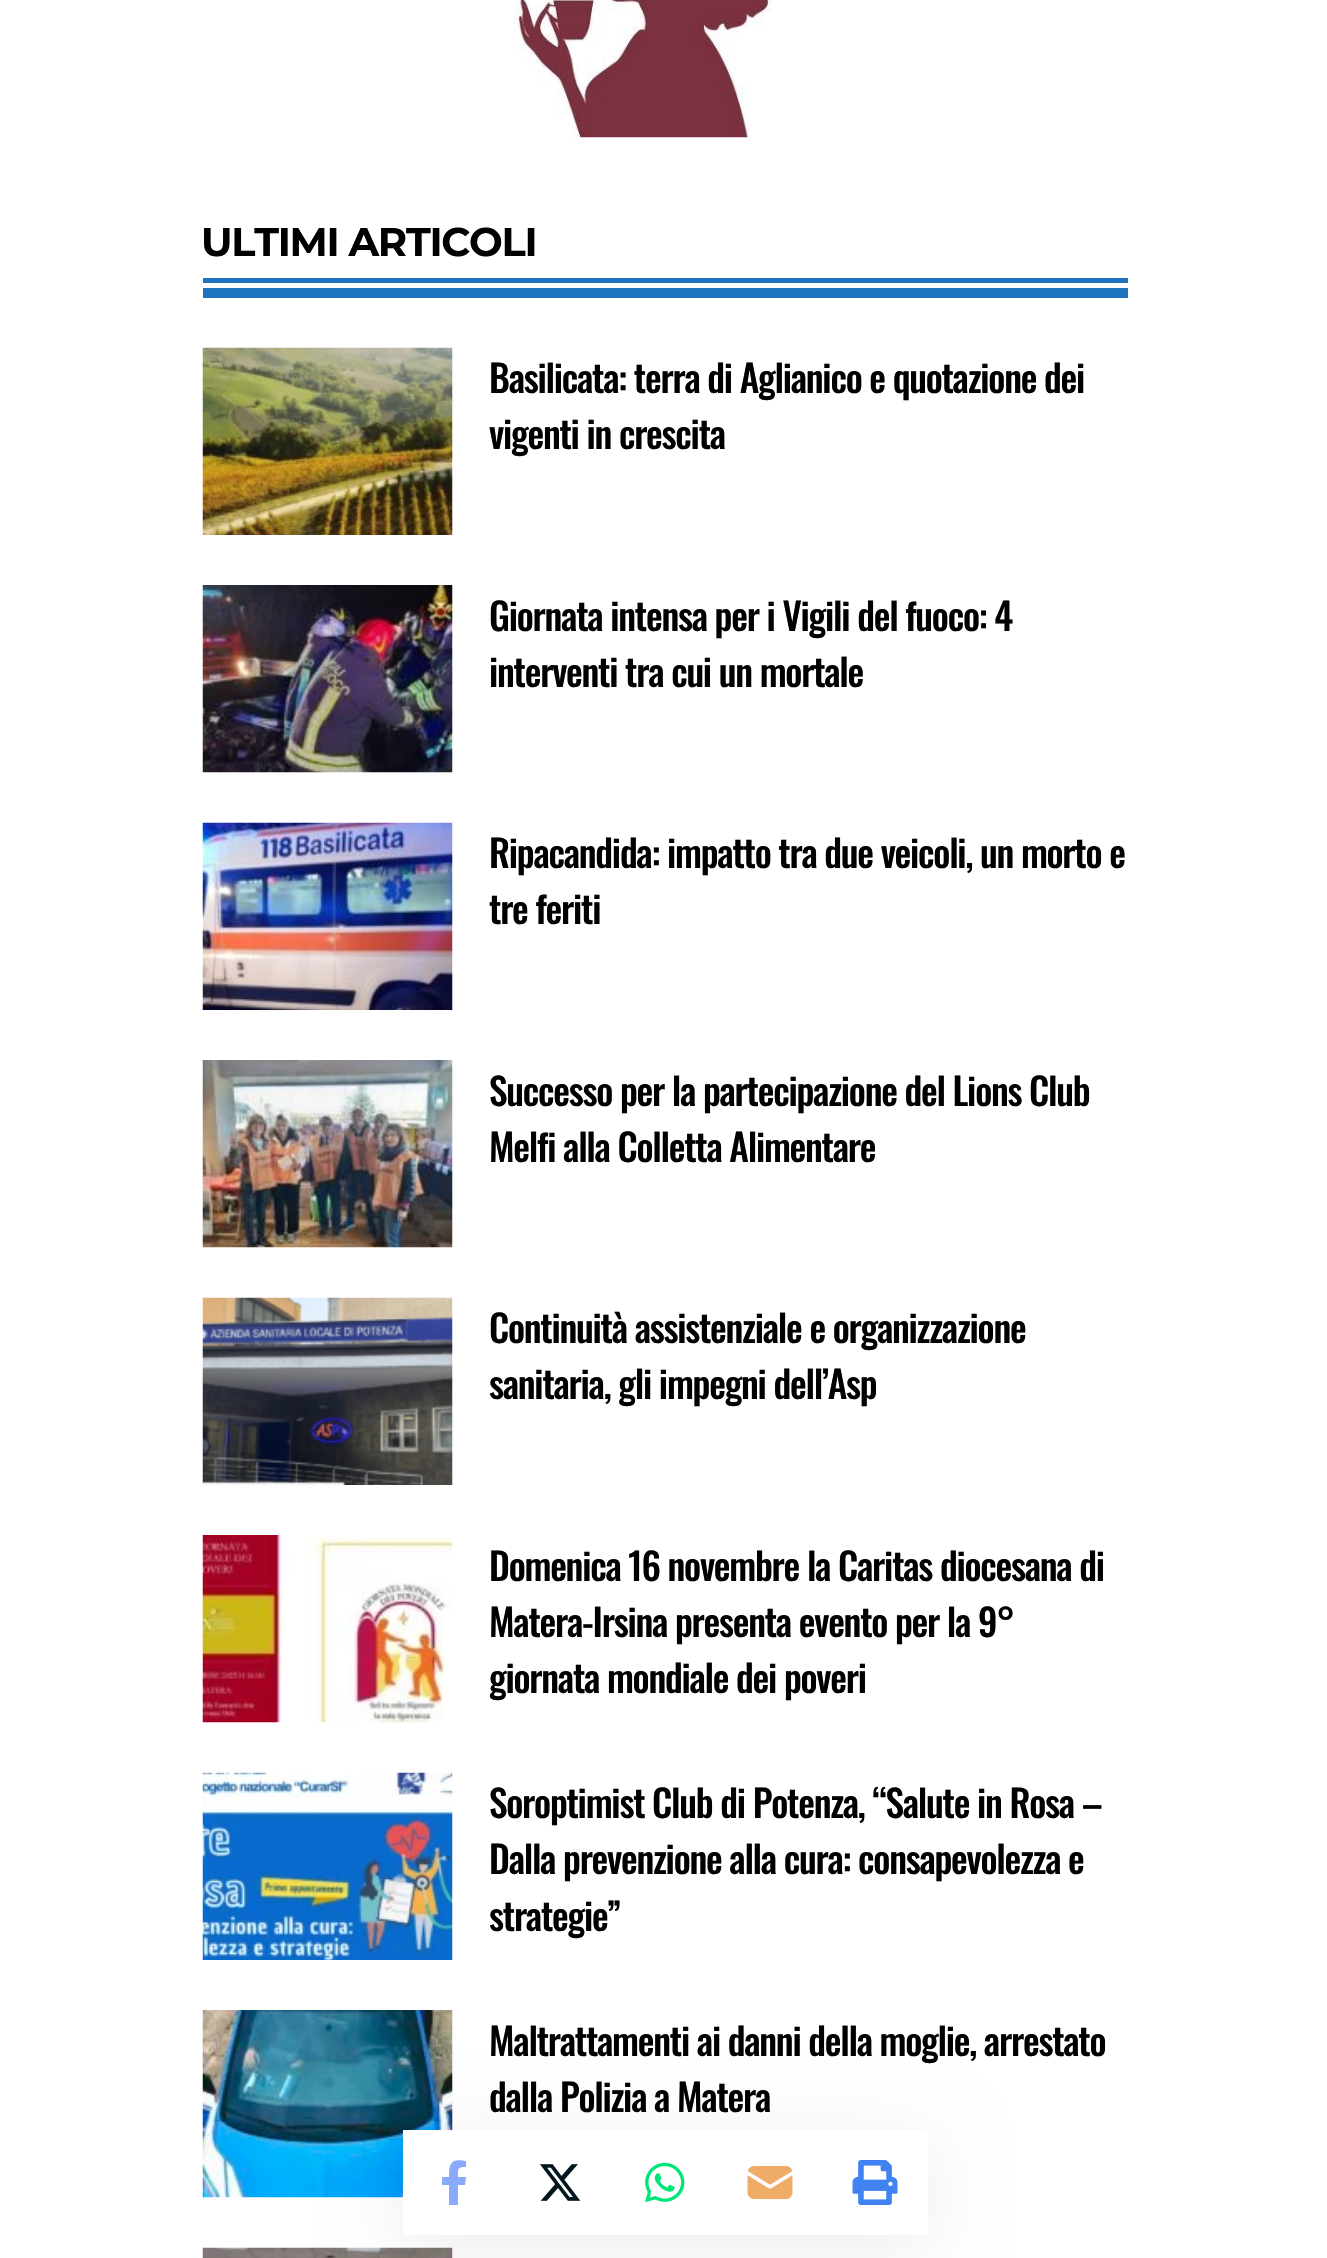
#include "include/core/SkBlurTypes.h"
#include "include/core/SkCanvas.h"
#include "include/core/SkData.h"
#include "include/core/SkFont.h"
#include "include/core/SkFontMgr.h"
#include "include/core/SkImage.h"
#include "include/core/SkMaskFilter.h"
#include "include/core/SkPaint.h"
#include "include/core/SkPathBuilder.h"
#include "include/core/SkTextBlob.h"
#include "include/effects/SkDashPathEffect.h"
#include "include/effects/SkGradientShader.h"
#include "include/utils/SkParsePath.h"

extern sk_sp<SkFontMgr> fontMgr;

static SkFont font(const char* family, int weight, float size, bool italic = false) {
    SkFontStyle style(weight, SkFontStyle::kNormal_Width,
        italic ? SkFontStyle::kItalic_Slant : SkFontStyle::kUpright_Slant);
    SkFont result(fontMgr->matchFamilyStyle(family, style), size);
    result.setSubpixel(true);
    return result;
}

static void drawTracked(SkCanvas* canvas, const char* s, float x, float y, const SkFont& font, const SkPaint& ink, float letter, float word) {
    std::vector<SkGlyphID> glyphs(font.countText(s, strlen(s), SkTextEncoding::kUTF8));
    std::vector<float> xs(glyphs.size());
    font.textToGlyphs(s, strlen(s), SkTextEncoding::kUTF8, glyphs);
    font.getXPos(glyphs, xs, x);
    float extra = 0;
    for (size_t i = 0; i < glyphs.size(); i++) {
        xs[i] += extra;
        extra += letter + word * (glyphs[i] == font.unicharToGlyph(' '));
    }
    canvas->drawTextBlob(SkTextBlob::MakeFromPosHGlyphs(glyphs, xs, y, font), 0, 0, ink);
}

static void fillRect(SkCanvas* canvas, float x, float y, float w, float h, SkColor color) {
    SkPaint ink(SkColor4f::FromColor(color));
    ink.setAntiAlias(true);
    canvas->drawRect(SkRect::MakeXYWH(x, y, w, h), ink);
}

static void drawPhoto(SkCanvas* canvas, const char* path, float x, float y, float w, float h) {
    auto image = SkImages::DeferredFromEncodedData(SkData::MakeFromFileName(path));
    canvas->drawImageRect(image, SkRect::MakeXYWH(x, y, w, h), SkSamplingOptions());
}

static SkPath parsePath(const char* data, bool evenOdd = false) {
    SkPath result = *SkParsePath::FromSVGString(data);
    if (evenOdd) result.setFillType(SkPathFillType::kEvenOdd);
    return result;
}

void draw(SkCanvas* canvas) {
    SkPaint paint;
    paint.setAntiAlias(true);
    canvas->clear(0xFFFFFFFF);
    drawPhoto(canvas, "assets/img1.png", 513, 0, 259, 138);
    fillRect(canvas, 203, 288, 925, 10, 0xFF1E73BE);
    SkFont font1 = font("Montserrat", 700, 40);
    paint.setColor(0xFF000000);
    drawTracked(canvas, "ULTIMI ARTICOLI", 201, 256, font1, paint, -1.25f, 0);
    fillRect(canvas, 203, 278, 925, 5, 0xFF1E73BE);
    drawPhoto(canvas, "assets/img2.png", 202, 347, 251, 188);
    SkFont font2 = font("Oswald", 500, 37.5f);
    drawTracked(canvas, "Basilicata: terra di Aglianico e quotazione dei", 489, 393, font2, paint, -1.25f, 0);
    drawTracked(canvas, "vigenti in crescita", 489, 449, font2, paint, -1.25f, 0);
    drawPhoto(canvas, "assets/img3.png", 202, 585, 251, 188);
    drawTracked(canvas, "Giornata intensa per i Vigili del fuoco: 4", 489, 631, font2, paint, -1.25f, 0);
    drawTracked(canvas, "interventi tra cui un mortale", 489, 687, font2, paint, -1.25f, 0);
    drawPhoto(canvas, "assets/img4.png", 202, 822, 251, 188);
    drawTracked(canvas, "Ripacandida: impatto tra due veicoli, un morto e", 489, 868, font2, paint, -1.25f, 0);
    drawTracked(canvas, "tre feriti", 489, 924, font2, paint, -1.25f, 0);
    drawPhoto(canvas, "assets/img5.png", 202, 1060, 251, 188);
    drawTracked(canvas, "Successo per la partecipazione del Lions Club", 489, 1106, font2, paint, -1.25f, 0);
    drawTracked(canvas, "Melfi alla Colletta Alimentare", 489, 1162, font2, paint, -1.25f, 0);
    drawPhoto(canvas, "assets/img6.png", 202, 1297, 251, 188);
    drawTracked(canvas, "Continuità assistenziale e organizzazione", 489, 1343, font2, paint, -1.25f, 0);
    drawTracked(canvas, "sanitaria, gli impegni dell’Asp", 489, 1399, font2, paint, -1.25f, 0);
    drawPhoto(canvas, "assets/img7.png", 202, 1535, 251, 188);
    drawTracked(canvas, "Domenica 16 novembre la Caritas diocesana di", 489, 1581, font2, paint, -1.25f, 0);
    drawTracked(canvas, "Matera-Irsina presenta evento per la 9°", 489, 1637, font2, paint, -1.25f, 0);
    drawTracked(canvas, "giornata mondiale dei poveri", 489, 1693, font2, paint, -1.25f, 0);
    drawPhoto(canvas, "assets/img8.png", 202, 1772, 251, 188);
    drawTracked(canvas, "Soroptimist Club di Potenza, “Salute in Rosa –", 489, 1818, font2, paint, -1.25f, 0);
    drawTracked(canvas, "Dalla prevenzione alla cura: consapevolezza e", 489, 1874, font2, paint, -1.25f, 0);
    drawTracked(canvas, "strategie”", 489, 1931, font2, paint, -1.25f, 0);
    drawPhoto(canvas, "assets/img9.png", 202, 2010, 251, 188);
    drawTracked(canvas, "Maltrattamenti ai danni della moglie, arrestato", 489, 2056, font2, paint, -1.25f, 0);
    drawTracked(canvas, "dalla Polizia a Matera", 489, 2112, font2, paint, -1.25f, 0);
    drawPhoto(canvas, "assets/img10.png", 202, 2247, 251, 11);
    paint.setColor(0x12000000);
    paint.setMaskFilter(SkMaskFilter::MakeBlur(kNormal_SkBlurStyle, 37.5f));
    canvas->drawRect(SkRect::MakeXYWH(403, 2143, 525, 105), paint);
    paint.setMaskFilter(nullptr);
    fillRect(canvas, 403, 2130, 525, 105, 0xFFFFFFFF);
    paint.setColor(0xFF89ABFC);
    canvas->drawPath(parsePath("M465 2185L466 2177H458C458 2169 457 2167 466 2167V2161C451 2158 449 2163 449 2177H442V2185H449V2205H458V2185Z"), paint);
    drawPhoto(canvas, "assets/img11.png", 540, 2164, 41, 37);
    drawPhoto(canvas, "assets/img12.png", 645, 2162, 40, 41);
    drawPhoto(canvas, "assets/img13.png", 747, 2165, 46, 35);
    drawPhoto(canvas, "assets/img14.png", 852, 2160, 46, 45);
}
